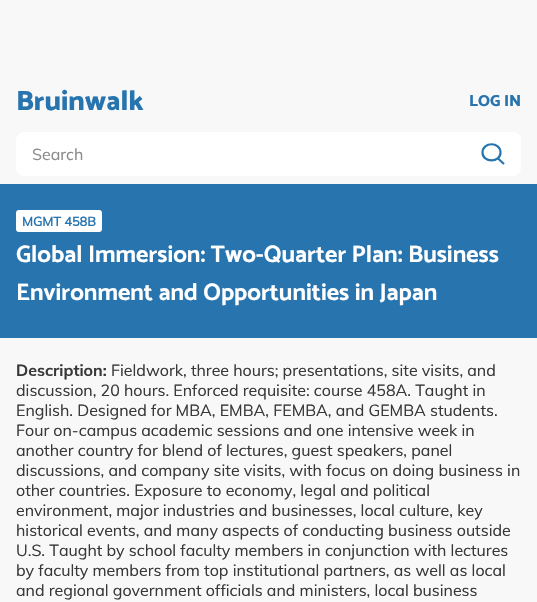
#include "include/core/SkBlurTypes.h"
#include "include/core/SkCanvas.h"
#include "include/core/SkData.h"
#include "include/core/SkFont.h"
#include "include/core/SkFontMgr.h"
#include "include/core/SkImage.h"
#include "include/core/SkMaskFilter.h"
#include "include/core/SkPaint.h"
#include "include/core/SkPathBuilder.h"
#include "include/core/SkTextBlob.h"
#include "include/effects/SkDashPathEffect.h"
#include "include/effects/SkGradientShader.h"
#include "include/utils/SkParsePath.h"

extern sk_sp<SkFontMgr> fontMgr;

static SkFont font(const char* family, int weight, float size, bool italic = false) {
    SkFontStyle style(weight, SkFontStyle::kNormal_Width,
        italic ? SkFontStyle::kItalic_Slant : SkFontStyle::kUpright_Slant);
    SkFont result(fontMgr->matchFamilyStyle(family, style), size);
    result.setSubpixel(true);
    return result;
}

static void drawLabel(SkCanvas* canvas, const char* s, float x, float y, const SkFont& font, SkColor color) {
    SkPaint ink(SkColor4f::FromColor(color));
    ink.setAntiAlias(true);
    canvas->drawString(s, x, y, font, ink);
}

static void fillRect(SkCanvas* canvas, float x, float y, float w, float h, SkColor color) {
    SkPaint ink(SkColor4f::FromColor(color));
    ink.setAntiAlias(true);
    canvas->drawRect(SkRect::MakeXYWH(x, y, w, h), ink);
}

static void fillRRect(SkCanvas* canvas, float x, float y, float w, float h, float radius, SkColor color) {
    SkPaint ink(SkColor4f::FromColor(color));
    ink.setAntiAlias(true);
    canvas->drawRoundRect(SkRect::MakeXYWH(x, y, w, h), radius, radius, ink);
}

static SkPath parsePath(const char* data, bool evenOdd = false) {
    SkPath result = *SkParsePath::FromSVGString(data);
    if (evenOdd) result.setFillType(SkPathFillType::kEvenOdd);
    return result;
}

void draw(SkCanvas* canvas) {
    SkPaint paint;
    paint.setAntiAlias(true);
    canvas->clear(0xFFF8F8F8);
    SkFont font1 = font("Catamaran", 800, 28);
    drawLabel(canvas, "Bruinwalk", 16, 110, font1, 0xFF2774AE);
    SkFont font2 = font("Catamaran", 800, 16);
    drawLabel(canvas, "LOG IN", 469, 106, font2, 0xFF2774AE);
    fillRRect(canvas, 16, 132, 505, 44, 8, 0xFFFFFFFF);
    SkFont font3 = font("Mulish", 200, 16);
    drawLabel(canvas, "Search", 32, 160, font3, 0xFF898989);
    paint.setStroke(true);
    paint.setStrokeWidth(2.2f);
    paint.setColor(0xFF2774AE);
    canvas->drawPath(parsePath("M500.5 152.5C500.5 163 482.5 163 482.5 152.5C482.5 141.5 500.5 141.5 500.5 152.5ZM497.5 158L504 164"), paint);
    fillRect(canvas, 0, 184, 537, 154, 0xFF2774AE);
    fillRRect(canvas, 16, 210, 86, 22, 3, 0xFFFFFFFF);
    SkFont font4 = font("Mulish", 700, 12.75f);
    drawLabel(canvas, "MGMT 458B", 22, 226, font4, 0xFF2774AE);
    SkFont font5 = font("Catamaran", 700, 24);
    drawLabel(canvas, "Global Immersion: Two-Quarter Plan: Business", 16, 262, font5, 0xFFFFFFFF);
    drawLabel(canvas, "Environment and Opportunities in Japan", 16, 300, font5, 0xFFFFFFFF);
    SkFont font6 = font("Muli", 700, 16);
    drawLabel(canvas, "Description:", 16, 376, font6, 0xFF383838);
    SkFont font7 = font("Muli", 400, 16);
    drawLabel(canvas, "Fieldwork, three hours; presentations, site visits, and", 111, 376, font7, 0xFF383838);
    drawLabel(canvas, "discussion, 20 hours. Enforced requisite: course 458A. Taught in", 16, 396, font7, 0xFF383838);
    drawLabel(canvas, "English. Designed for MBA, EMBA, FEMBA, and GEMBA students.", 16, 416, font7, 0xFF383838);
    drawLabel(canvas, "Four on-campus academic sessions and one intensive week in", 16, 436, font7, 0xFF383838);
    drawLabel(canvas, "another country for blend of lectures, guest speakers, panel", 16, 456, font7, 0xFF383838);
    drawLabel(canvas, "discussions, and company site visits, with focus on doing business in", 16, 476, font7, 0xFF383838);
    drawLabel(canvas, "other countries. Exposure to economy, legal and political", 16, 496, font7, 0xFF383838);
    drawLabel(canvas, "environment, major industries and businesses, local culture, key", 16, 516, font7, 0xFF383838);
    drawLabel(canvas, "historical events, and many aspects of conducting business outside", 16, 536, font7, 0xFF383838);
    drawLabel(canvas, "U.S. Taught by school faculty members in conjunction with lectures", 16, 556, font7, 0xFF383838);
    drawLabel(canvas, "by faculty members from top institutional partners, as well as local", 16, 576, font7, 0xFF383838);
    drawLabel(canvas, "and regional government officials and ministers, local business", 16, 596, font7, 0xFF383838);
}
